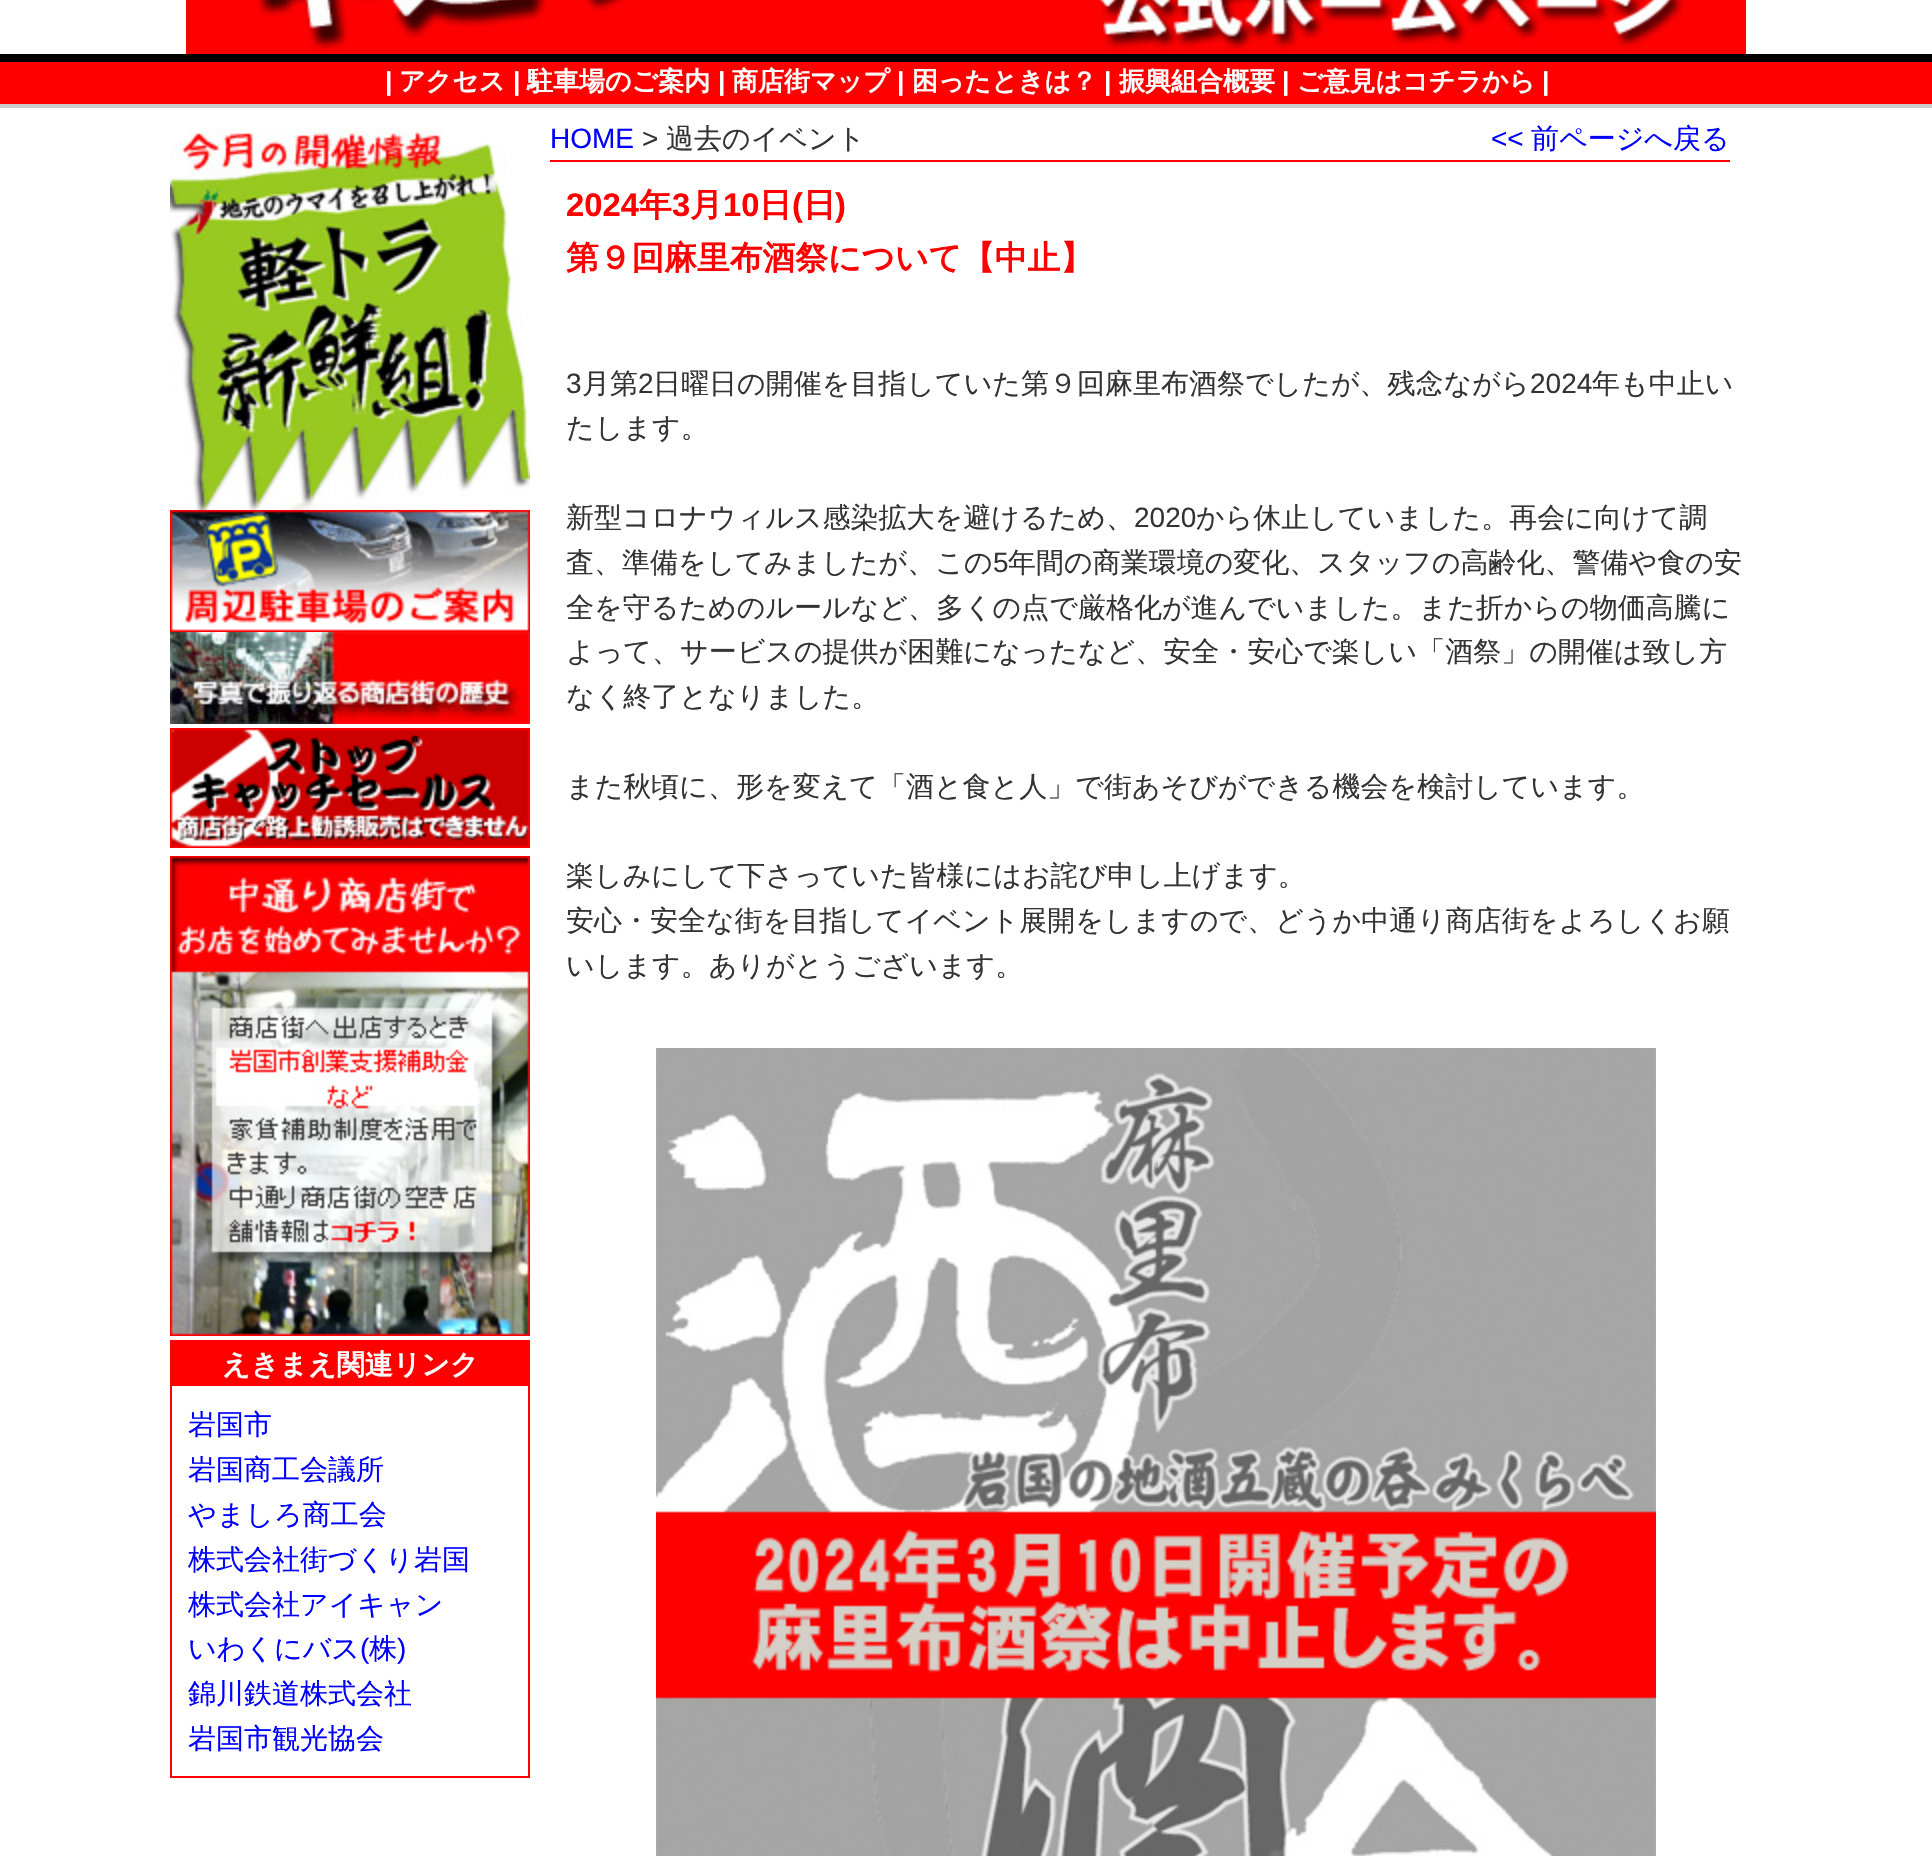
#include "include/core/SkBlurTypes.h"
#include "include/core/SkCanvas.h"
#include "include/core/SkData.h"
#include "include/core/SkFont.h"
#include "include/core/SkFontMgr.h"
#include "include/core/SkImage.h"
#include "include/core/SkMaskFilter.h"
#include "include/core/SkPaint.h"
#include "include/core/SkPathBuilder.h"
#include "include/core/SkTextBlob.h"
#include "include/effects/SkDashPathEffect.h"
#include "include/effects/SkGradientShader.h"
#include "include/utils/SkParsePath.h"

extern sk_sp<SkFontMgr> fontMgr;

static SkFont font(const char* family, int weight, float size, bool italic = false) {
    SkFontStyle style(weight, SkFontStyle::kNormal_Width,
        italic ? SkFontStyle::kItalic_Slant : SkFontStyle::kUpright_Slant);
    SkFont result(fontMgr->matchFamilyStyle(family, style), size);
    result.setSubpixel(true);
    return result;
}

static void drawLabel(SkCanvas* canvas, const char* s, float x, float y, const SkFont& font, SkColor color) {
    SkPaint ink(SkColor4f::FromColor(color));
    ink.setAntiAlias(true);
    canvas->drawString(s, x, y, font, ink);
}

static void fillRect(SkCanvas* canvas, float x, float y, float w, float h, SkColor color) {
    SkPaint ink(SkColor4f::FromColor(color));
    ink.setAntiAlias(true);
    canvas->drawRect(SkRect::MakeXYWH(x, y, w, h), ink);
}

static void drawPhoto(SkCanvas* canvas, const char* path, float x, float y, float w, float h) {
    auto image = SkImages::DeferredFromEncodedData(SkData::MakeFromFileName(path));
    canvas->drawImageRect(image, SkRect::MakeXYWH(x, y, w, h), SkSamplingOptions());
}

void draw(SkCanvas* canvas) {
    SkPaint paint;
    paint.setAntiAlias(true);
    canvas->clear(0xFFFFFFFF);
    drawPhoto(canvas, "assets/img1.png", 186, 0, 1560, 54);
    fillRect(canvas, 0, 54, 1932, 8, 0xFF000000);
    fillRect(canvas, 0, 62, 1932, 42, 0xFFFF0000);
    SkFont font1 = font("Liberation Sans", 700, 26);
    drawLabel(canvas, "|", 385, 90, font1, 0xFFFFFFFF);
    SkFont font2 = font("WenQuanYi Zen Hei", 700, 26);
    drawLabel(canvas, "アクセス", 399, 90, font2, 0xFFFFFFFF);
    drawLabel(canvas, "|", 513, 90, font1, 0xFFFFFFFF);
    drawLabel(canvas, "駐車場のご案内", 527, 90, font2, 0xFFFFFFFF);
    drawLabel(canvas, "|", 718, 90, font1, 0xFFFFFFFF);
    drawLabel(canvas, "商店街マップ", 732, 90, font2, 0xFFFFFFFF);
    drawLabel(canvas, "|", 897, 90, font1, 0xFFFFFFFF);
    drawLabel(canvas, "困ったときは？", 912, 90, font2, 0xFFFFFFFF);
    drawLabel(canvas, "|", 1104, 90, font1, 0xFFFFFFFF);
    drawLabel(canvas, "振興組合概要", 1119, 90, font2, 0xFFFFFFFF);
    drawLabel(canvas, "|", 1282, 90, font1, 0xFFFFFFFF);
    drawLabel(canvas, "ご意見はコチラから", 1297, 90, font2, 0xFFFFFFFF);
    drawLabel(canvas, "|", 1542, 90, font1, 0xFFFFFFFF);
    fillRect(canvas, 0, 104, 1932, 4, 0xFFCCCCCC);
    SkFont font3 = font("Liberation Sans", 400, 28);
    drawLabel(canvas, "HOME", 550, 148, font3, 0xFF0000FF);
    drawLabel(canvas, ">", 642, 148, font3, 0xFF333333);
    SkFont font4 = font("WenQuanYi Zen Hei", 500, 28);
    drawLabel(canvas, "過去のイベント", 666, 148, font4, 0xFF333333);
    drawLabel(canvas, "<<", 1491, 148, font3, 0xFF0000FF);
    drawLabel(canvas, "前ページへ戻る", 1531, 148, font4, 0xFF0000FF);
    fillRect(canvas, 550, 160, 1180, 2, 0xFFFF0000);
    SkFont font5 = font("Liberation Sans", 700, 32.75f);
    drawLabel(canvas, "2024", 566, 216, font5, 0xFFFF0000);
    SkFont font6 = font("WenQuanYi Zen Hei", 700, 32.75f);
    drawLabel(canvas, "年", 639, 216, font6, 0xFFFF0000);
    drawLabel(canvas, "3", 672, 216, font5, 0xFFFF0000);
    drawLabel(canvas, "月", 690, 216, font6, 0xFFFF0000);
    drawLabel(canvas, "10", 723, 216, font5, 0xFFFF0000);
    drawLabel(canvas, "日", 759, 216, font6, 0xFFFF0000);
    drawLabel(canvas, "(", 792, 216, font5, 0xFFFF0000);
    drawLabel(canvas, "日", 803, 216, font6, 0xFFFF0000);
    drawLabel(canvas, ")", 835, 216, font5, 0xFFFF0000);
    drawLabel(canvas, "第９回麻里布酒祭について【中止】", 566, 269, font6, 0xFFFF0000);
    drawLabel(canvas, "3", 566, 393, font3, 0xFF333333);
    drawLabel(canvas, "月第", 582, 393, font4, 0xFF333333);
    drawLabel(canvas, "2", 638, 393, font3, 0xFF333333);
    drawLabel(canvas, "日曜日の開催を目指していた第９回麻里布酒祭でしたが、残念ながら", 653, 393, font4, 0xFF333333);
    drawLabel(canvas, "2024", 1530, 393, font3, 0xFF333333);
    drawLabel(canvas, "年も中止い", 1592, 393, font4, 0xFF333333);
    drawLabel(canvas, "たします。", 566, 437, font4, 0xFF333333);
    drawLabel(canvas, "新型コロナウィルス感染拡大を避けるため、", 566, 527, font4, 0xFF333333);
    drawLabel(canvas, "2020", 1134, 527, font3, 0xFF333333);
    drawLabel(canvas, "から休止していました。再会に向けて調", 1196, 527, font4, 0xFF333333);
    drawLabel(canvas, "査、準備をしてみましたが、この", 566, 572, font4, 0xFF333333);
    drawLabel(canvas, "5", 993, 572, font3, 0xFF333333);
    drawLabel(canvas, "年間の商業環境の変化、スタッフの高齢化、警備や食の安", 1008, 572, font4, 0xFF333333);
    drawLabel(canvas, "全を守るためのルールなど、多くの点で厳格化が進んでいました。また折からの物価高騰に", 566, 617, font4, 0xFF333333);
    drawLabel(canvas, "よって、サービスの提供が困難になったなど、安全・安心で楽しい「酒祭」の開催は致し方", 566, 661, font4, 0xFF333333);
    drawLabel(canvas, "なく終了となりました。", 566, 706, font4, 0xFF333333);
    drawLabel(canvas, "また秋頃に、形を変えて「酒と食と人」で街あそびができる機会を検討しています。", 566, 796, font4, 0xFF333333);
    drawLabel(canvas, "楽しみにして下さっていた皆様にはお詫び申し上げます。", 566, 885, font4, 0xFF333333);
    drawLabel(canvas, "安心・安全な街を目指してイベント展開をしますので、どうか中通り商店街をよろしくお願", 566, 930, font4, 0xFF333333);
    drawLabel(canvas, "いします。ありがとうございます。", 566, 975, font4, 0xFF333333);
    drawPhoto(canvas, "assets/img2.png", 656, 1048, 1000, 808);
    drawPhoto(canvas, "assets/img3.png", 170, 128, 360, 382);
    drawPhoto(canvas, "assets/img4.png", 170, 510, 360, 122);
    drawPhoto(canvas, "assets/img5.png", 170, 632, 360, 92);
    drawPhoto(canvas, "assets/img6.png", 170, 728, 360, 120);
    drawPhoto(canvas, "assets/img7.png", 170, 856, 360, 480);
    fillRect(canvas, 170, 1340, 360, 438, 0xFFFF0000);
    SkFont font7 = font("WenQuanYi Zen Hei", 700, 28);
    drawLabel(canvas, "えきまえ関連リンク", 222, 1374, font7, 0xFFFFFFFF);
    fillRect(canvas, 172, 1386, 356, 390, 0xFFFFFFFF);
    drawLabel(canvas, "岩国市", 188, 1434, font4, 0xFF0000FF);
    drawLabel(canvas, "岩国商工会議所", 188, 1479, font4, 0xFF0000FF);
    drawLabel(canvas, "やましろ商工会", 188, 1524, font4, 0xFF0000FF);
    drawLabel(canvas, "株式会社街づくり岩国", 188, 1569, font4, 0xFF0000FF);
    drawLabel(canvas, "株式会社アイキャン", 188, 1614, font4, 0xFF0000FF);
    drawLabel(canvas, "いわくにバス", 188, 1658, font4, 0xFF0000FF);
    drawLabel(canvas, "(", 360, 1658, font3, 0xFF0000FF);
    drawLabel(canvas, "株", 369, 1658, font4, 0xFF0000FF);
    drawLabel(canvas, ")", 397, 1658, font3, 0xFF0000FF);
    drawLabel(canvas, "錦川鉄道株式会社", 188, 1703, font4, 0xFF0000FF);
    drawLabel(canvas, "岩国市観光協会", 188, 1748, font4, 0xFF0000FF);
}
